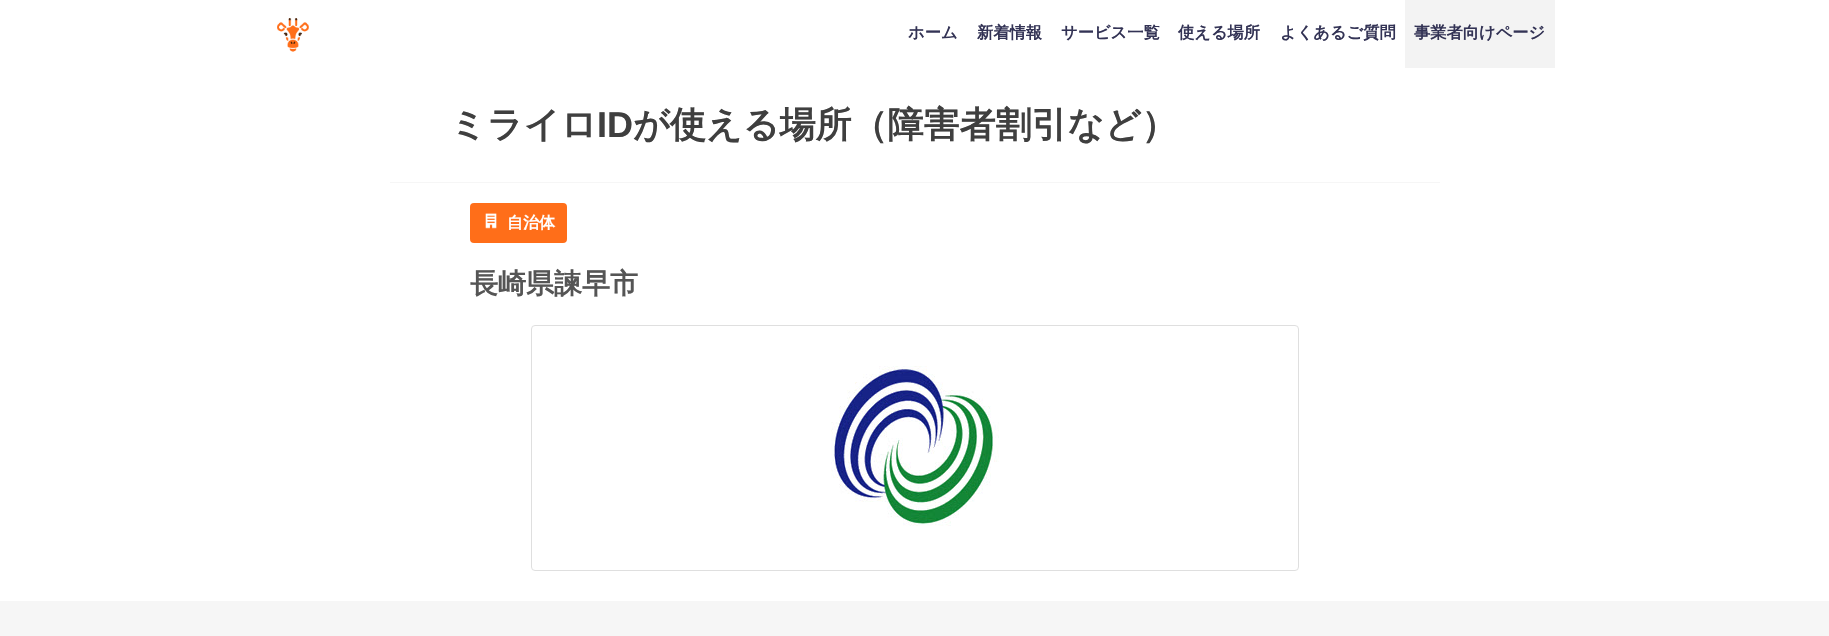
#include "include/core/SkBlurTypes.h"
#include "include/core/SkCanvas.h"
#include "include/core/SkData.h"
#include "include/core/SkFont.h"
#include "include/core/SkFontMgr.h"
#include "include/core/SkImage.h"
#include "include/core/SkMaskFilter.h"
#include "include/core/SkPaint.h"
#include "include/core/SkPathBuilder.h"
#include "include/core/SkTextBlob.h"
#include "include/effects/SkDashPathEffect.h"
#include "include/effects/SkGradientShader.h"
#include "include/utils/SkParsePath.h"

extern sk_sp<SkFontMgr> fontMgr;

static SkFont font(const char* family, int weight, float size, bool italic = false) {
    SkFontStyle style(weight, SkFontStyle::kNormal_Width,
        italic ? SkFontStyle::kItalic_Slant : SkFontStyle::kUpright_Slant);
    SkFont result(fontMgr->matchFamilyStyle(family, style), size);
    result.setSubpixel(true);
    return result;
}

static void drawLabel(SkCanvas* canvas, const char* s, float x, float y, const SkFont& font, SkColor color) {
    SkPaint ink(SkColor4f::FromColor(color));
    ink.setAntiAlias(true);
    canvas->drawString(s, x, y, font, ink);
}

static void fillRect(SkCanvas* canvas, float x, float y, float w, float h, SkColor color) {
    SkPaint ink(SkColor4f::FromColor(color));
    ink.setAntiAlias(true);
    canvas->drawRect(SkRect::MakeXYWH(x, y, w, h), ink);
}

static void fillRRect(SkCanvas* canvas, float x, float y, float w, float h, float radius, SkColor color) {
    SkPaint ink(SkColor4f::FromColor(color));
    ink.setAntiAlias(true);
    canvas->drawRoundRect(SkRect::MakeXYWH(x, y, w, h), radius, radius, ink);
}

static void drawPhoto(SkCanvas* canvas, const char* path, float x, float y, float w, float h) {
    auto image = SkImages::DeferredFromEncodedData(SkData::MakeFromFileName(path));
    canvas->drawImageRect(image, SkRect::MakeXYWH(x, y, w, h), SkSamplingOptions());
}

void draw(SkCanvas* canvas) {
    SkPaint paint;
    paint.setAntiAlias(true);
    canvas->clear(0xFFFFFFFF);
    drawPhoto(canvas, "assets/img1.png", 277, 18, 32, 34);
    SkFont font1 = font("WenQuanYi Zen Hei", 700, 16.25f);
    drawLabel(canvas, "ホーム", 908, 38, font1, 0xFF333355);
    drawLabel(canvas, "新着情報", 977, 38, font1, 0xFF333355);
    drawLabel(canvas, "サービス一覧", 1061, 38, font1, 0xFF333355);
    drawLabel(canvas, "使える場所", 1178, 38, font1, 0xFF333355);
    drawLabel(canvas, "よくあるご質問", 1280, 38, font1, 0xFF333355);
    fillRect(canvas, 1405, 0, 150, 68, 0xFFF3F3F3);
    drawLabel(canvas, "事業者向けページ", 1414, 38, font1, 0xFF333355);
    SkFont font2 = font("WenQuanYi Zen Hei", 700, 36);
    drawLabel(canvas, "ミライロ", 450, 137, font2, 0xFF3F3F3F);
    SkFont font3 = font("Liberation Sans", 700, 36);
    drawLabel(canvas, "ID", 597, 137, font3, 0xFF3F3F3F);
    drawLabel(canvas, "が使える場所（障害者割引など）", 633, 137, font2, 0xFF3F3F3F);
    fillRect(canvas, 390, 182, 1050, 1, 0xFFF6F6F6);
    fillRRect(canvas, 470, 203, 97, 40, 4, 0xFFFF6E19);
    drawPhoto(canvas, "assets/img2.png", 485, 213, 12, 16);
    SkFont font4 = font("WenQuanYi Zen Hei", 700, 16);
    drawLabel(canvas, "自治体", 507, 228, font4, 0xFFFFFFFF);
    SkFont font5 = font("WenQuanYi Zen Hei", 700, 28);
    drawLabel(canvas, "長崎県諫早市", 470, 293, font5, 0xFF555555);
    paint.setStroke(true);
    paint.setStrokeWidth(1);
    paint.setColor(0xFFDFDFDF);
    canvas->drawRoundRect(SkRect::MakeXYWH(531.5f, 325.5f, 767, 245), 3.5f, 3.5f, paint);
    drawPhoto(canvas, "assets/img3.png", 831, 366, 168, 160);
    fillRect(canvas, 0, 601, 1829, 35, 0xFFF6F6F6);
}
